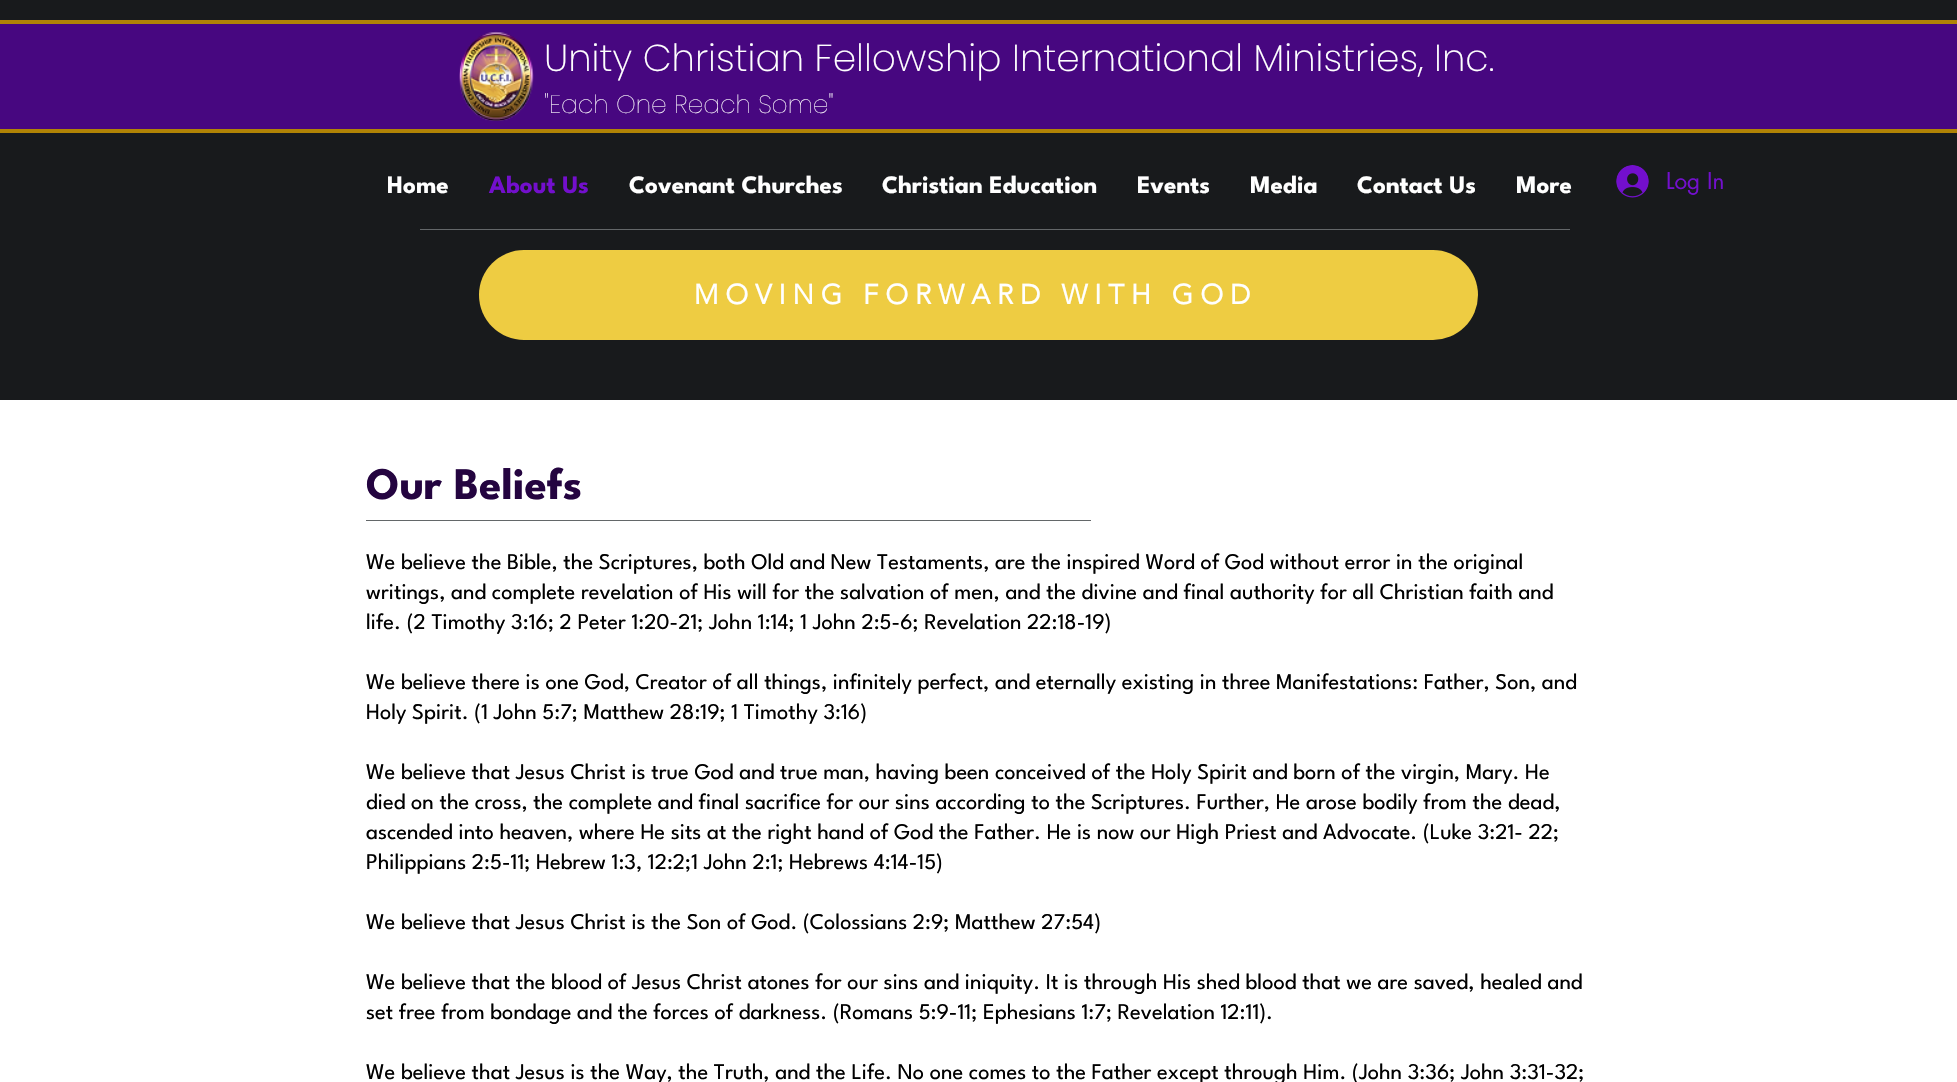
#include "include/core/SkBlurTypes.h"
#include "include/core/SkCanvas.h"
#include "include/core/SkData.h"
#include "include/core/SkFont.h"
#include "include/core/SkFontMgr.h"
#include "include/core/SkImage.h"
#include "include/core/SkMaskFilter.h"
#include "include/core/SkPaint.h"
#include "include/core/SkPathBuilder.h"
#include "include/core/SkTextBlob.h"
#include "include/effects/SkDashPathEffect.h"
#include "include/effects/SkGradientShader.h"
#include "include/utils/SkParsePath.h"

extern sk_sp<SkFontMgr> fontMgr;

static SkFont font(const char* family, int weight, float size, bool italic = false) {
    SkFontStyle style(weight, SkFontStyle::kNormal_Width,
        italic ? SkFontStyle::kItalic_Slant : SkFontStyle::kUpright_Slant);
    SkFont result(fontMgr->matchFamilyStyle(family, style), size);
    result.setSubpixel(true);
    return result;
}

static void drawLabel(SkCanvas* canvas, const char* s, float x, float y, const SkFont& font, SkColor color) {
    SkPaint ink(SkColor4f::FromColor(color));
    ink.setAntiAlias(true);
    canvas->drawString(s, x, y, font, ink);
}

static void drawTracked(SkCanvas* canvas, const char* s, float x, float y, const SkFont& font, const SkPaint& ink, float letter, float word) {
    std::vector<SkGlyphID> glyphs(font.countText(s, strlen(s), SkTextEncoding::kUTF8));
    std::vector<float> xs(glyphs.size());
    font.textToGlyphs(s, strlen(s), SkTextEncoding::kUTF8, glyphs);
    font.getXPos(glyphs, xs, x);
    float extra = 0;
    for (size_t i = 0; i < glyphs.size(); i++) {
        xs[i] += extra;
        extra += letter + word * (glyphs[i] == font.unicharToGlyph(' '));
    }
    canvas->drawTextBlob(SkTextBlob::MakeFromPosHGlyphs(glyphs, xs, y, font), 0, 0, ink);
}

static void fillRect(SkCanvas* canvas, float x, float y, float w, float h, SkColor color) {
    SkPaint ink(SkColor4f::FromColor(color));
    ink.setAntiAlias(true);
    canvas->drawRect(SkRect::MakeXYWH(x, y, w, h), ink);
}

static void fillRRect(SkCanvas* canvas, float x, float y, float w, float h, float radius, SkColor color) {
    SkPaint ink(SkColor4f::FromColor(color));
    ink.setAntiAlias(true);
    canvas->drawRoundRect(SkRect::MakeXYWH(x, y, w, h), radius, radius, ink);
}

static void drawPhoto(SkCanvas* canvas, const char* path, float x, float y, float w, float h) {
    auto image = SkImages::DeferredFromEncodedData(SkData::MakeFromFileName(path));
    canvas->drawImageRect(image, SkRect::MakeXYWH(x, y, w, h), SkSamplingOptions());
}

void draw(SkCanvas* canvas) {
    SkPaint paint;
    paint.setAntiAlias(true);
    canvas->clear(0xFF181A1C);
    fillRect(canvas, 0, 24, 1957, 105, 0xFF470780);
    fillRect(canvas, 0, 20, 1957, 4, 0xFFB08305);
    fillRect(canvas, 0, 129, 1957, 4, 0xFFB08305);
    drawPhoto(canvas, "assets/img1.png", 459, 31, 75, 90);
    SkFont font1 = font("Poppins", 200, 37.5f);
    drawLabel(canvas, "Unity Christian Fellowship International Ministries, Inc.", 544, 71, font1, 0xFFFFFFFF);
    SkFont font2 = font("Poppins", 100, 25);
    drawLabel(canvas, "\"Each One Reach Some\"", 544, 113, font2, 0xFFFFFFFF);
    SkFont font3 = font("League Spartan", 700, 25);
    drawLabel(canvas, "Home", 387, 193, font3, 0xFFFFFFFF);
    drawLabel(canvas, "About Us", 489, 193, font3, 0xFF730FCD);
    drawLabel(canvas, "Covenant Churches", 629, 193, font3, 0xFFFFFFFF);
    drawLabel(canvas, "Christian Education", 882, 193, font3, 0xFFFFFFFF);
    drawLabel(canvas, "Events", 1137, 193, font3, 0xFFFFFFFF);
    drawLabel(canvas, "Media", 1250, 193, font3, 0xFFFFFFFF);
    drawLabel(canvas, "Contact Us", 1357, 193, font3, 0xFFFFFFFF);
    drawLabel(canvas, "More", 1516, 193, font3, 0xFFFFFFFF);
    drawPhoto(canvas, "assets/img2.png", 1616, 165, 33, 33);
    SkFont font4 = font("futura", 400, 22.5f);
    drawLabel(canvas, "Log In", 1666, 189, font4, 0xFF730FCD);
    fillRect(canvas, 420, 229, 1150, 1, 0xFF636769);
    fillRRect(canvas, 479, 250, 999, 90, 45, 0xFFEECC42);
    SkFont font5 = font("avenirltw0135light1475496", 700, 27.5f);
    paint.setColor(0xFFFFFFFF);
    drawTracked(canvas, "MOVING FORWARD WITH GOD", 694, 304, font5, paint, 6.9f, 0);
    fillRect(canvas, 0, 400, 1957, 682, 0xFFFFFFFF);
    SkFont font6 = font("League Spartan", 700, 45);
    drawLabel(canvas, "Our Beliefs", 366, 499, font6, 0xFF240440);
    fillRect(canvas, 366, 520, 725, 1, 0xFF636769);
    SkFont font7 = font("League Spartan", 400, 22.5f);
    drawLabel(canvas, "We believe the Bible, the Scriptures, both Old and New Testaments, are the inspired Word of God without error in the original", 366, 569, font7, 0xFF000000);
    drawLabel(canvas, "writings, and complete revelation of His will for the salvation of men, and the divine and final authority for all Christian faith and", 366, 599, font7, 0xFF000000);
    drawLabel(canvas, "life. (2 Timothy 3:16; 2 Peter 1:20-21; John 1:14; 1 John 2:5-6; Revelation 22:18-19)", 366, 629, font7, 0xFF000000);
    drawLabel(canvas, "We believe there is one God, Creator of all things, infinitely perfect, and eternally existing in three Manifestations: Father, Son, and", 366, 689, font7, 0xFF000000);
    drawLabel(canvas, "Holy Spirit. (1 John 5:7; Matthew 28:19; 1 Timothy 3:16)", 366, 719, font7, 0xFF000000);
    drawLabel(canvas, "We believe that Jesus Christ is true God and true man, having been conceived of the Holy Spirit and born of the virgin, Mary. He", 366, 779, font7, 0xFF000000);
    drawLabel(canvas, "died on the cross, the complete and final sacrifice for our sins according to the Scriptures. Further, He arose bodily from the dead,", 366, 809, font7, 0xFF000000);
    drawLabel(canvas, "ascended into heaven, where He sits at the right hand of God the Father. He is now our High Priest and Advocate. (Luke 3:21- 22;", 366, 839, font7, 0xFF000000);
    drawLabel(canvas, "Philippians 2:5-11; Hebrew 1:3, 12:2;1 John 2:1; Hebrews 4:14-15)", 366, 869, font7, 0xFF000000);
    drawLabel(canvas, "We believe that Jesus Christ is the Son of God. (Colossians 2:9; Matthew 27:54)", 366, 929, font7, 0xFF000000);
    drawLabel(canvas, "We believe that the blood of Jesus Christ atones for our sins and iniquity. It is through His shed blood that we are saved, healed and", 366, 989, font7, 0xFF000000);
    drawLabel(canvas, "set free from bondage and the forces of darkness. (Romans 5:9-11; Ephesians 1:7; Revelation 12:11).", 366, 1019, font7, 0xFF000000);
    drawLabel(canvas, "We believe that Jesus is the Way, the Truth, and the Life. No one comes to the Father except through Him. (John 3:36; John 3:31-32;", 366, 1079, font7, 0xFF000000);
}
